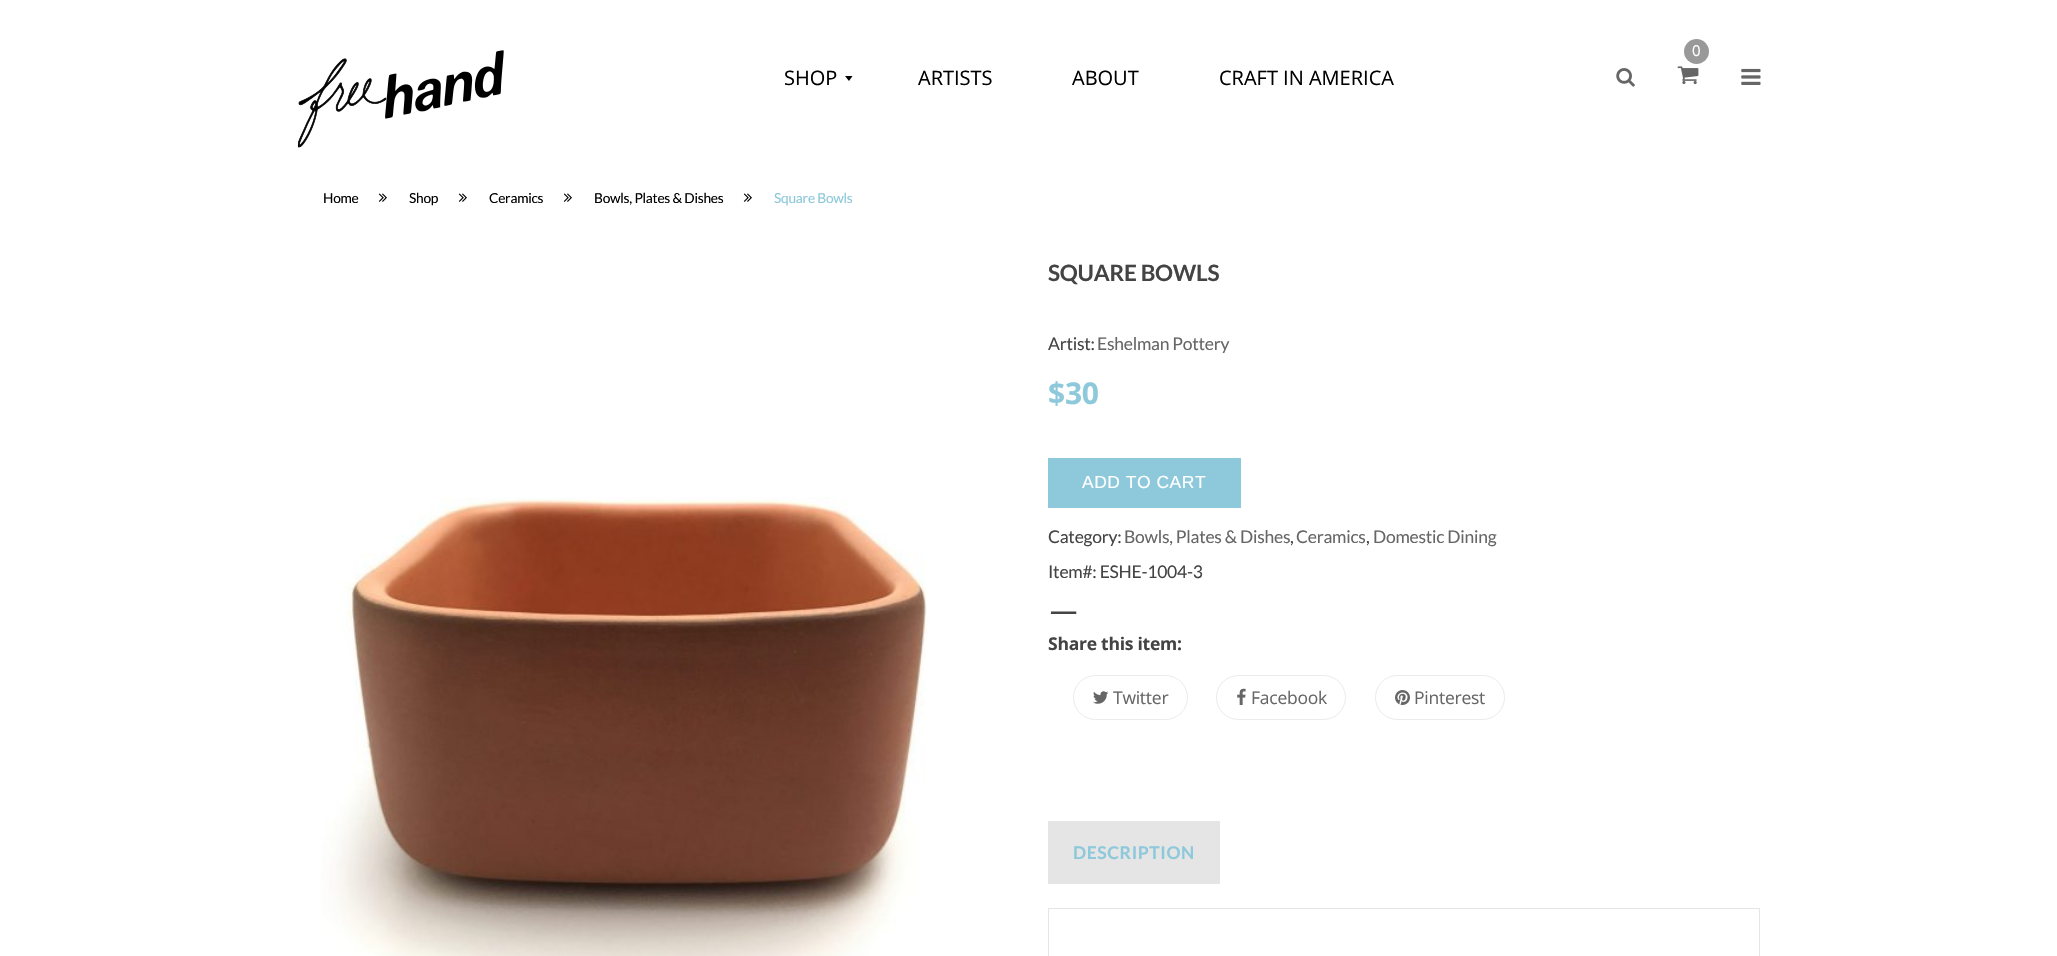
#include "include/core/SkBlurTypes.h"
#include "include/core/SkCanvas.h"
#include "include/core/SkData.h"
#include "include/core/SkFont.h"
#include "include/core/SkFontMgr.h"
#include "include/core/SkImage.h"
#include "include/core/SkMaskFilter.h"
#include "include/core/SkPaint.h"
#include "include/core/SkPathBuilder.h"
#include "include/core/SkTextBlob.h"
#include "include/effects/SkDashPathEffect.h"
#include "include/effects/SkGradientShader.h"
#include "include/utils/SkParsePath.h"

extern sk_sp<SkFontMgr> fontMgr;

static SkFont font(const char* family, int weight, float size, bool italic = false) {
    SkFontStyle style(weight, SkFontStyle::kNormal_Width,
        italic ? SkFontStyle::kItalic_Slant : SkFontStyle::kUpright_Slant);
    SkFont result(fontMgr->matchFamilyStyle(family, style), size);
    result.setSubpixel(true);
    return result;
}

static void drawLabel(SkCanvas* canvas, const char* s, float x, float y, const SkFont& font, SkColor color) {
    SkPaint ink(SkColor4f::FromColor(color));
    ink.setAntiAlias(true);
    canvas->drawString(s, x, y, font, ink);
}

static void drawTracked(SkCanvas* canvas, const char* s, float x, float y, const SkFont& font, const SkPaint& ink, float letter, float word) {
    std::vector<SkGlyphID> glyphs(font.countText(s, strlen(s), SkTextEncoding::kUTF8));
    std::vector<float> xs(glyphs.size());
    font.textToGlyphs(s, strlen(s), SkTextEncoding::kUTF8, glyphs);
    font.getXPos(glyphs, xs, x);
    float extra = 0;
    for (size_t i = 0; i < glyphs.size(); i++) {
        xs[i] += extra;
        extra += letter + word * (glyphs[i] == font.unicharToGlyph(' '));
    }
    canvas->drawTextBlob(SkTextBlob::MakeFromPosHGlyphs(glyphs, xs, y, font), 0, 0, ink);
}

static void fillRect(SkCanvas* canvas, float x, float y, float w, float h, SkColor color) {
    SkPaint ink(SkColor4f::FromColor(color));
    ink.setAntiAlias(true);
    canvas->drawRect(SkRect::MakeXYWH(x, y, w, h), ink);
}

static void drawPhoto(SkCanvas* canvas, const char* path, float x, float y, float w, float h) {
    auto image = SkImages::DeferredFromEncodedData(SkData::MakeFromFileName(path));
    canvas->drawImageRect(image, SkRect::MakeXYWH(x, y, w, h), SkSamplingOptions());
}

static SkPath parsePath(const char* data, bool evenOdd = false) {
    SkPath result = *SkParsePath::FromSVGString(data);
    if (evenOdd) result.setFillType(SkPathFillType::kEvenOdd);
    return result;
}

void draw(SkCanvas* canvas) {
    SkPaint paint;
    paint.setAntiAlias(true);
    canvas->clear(0xFFFFFFFF);
    drawPhoto(canvas, "assets/img1.png", 298, 50, 206, 98);
    SkFont font1 = font("Open Sans", 400, 20);
    drawLabel(canvas, "SHOP", 784, 85, font1, 0xFF000000);
    paint.setColor(0xFF000000);
    canvas->drawPath(parsePath("M845 76H852.5L849 81Z"), paint);
    drawLabel(canvas, "ARTISTS", 918, 85, font1, 0xFF000000);
    drawLabel(canvas, "ABOUT", 1072, 85, font1, 0xFF000000);
    drawLabel(canvas, "CRAFT IN AMERICA", 1219, 85, font1, 0xFF000000);
    paint.setColor(0xFF999999);
    canvas->drawCircle(1696.5f, 51.5f, 12.5f, paint);
    SkFont font2 = font("Open Sans", 400, 15);
    paint.setColor(0xFFFFFFFF);
    drawTracked(canvas, "0", 1692, 56, font2, paint, -0.25f, 0);
    drawPhoto(canvas, "assets/img2.png", 1677, 66, 22, 19);
    drawPhoto(canvas, "assets/img3.png", 1616, 68, 19, 19);
    drawPhoto(canvas, "assets/img4.png", 1741, 68, 20, 17);
    SkFont font3 = font("Lato", 400, 13.75f);
    paint.setColor(0xFF000000);
    drawTracked(canvas, "Home", 323, 203, font3, paint, -0.25f, 0);
    drawPhoto(canvas, "assets/img5.png", 378, 193, 9, 9);
    drawTracked(canvas, "Shop", 409, 203, font3, paint, -0.25f, 0);
    drawPhoto(canvas, "assets/img5.png", 458, 193, 9, 9);
    drawTracked(canvas, "Ceramics", 489, 203, font3, paint, -0.25f, 0);
    drawPhoto(canvas, "assets/img5.png", 563, 193, 9, 9);
    drawTracked(canvas, "Bowls, Plates & Dishes", 594, 203, font3, paint, -0.25f, 0);
    drawPhoto(canvas, "assets/img5.png", 743, 193, 9, 9);
    paint.setColor(0xFF8EC9DB);
    drawTracked(canvas, "Square Bowls", 774, 203, font3, paint, -0.25f, 0);
    drawPhoto(canvas, "assets/img6.png", 321, 497, 608, 459);
    SkFont font4 = font("Lato", 700, 22.5f);
    paint.setColor(0xFF444444);
    drawTracked(canvas, "SQUARE BOWLS", 1048, 281, font4, paint, -0.25f, 0);
    SkFont font5 = font("Lato", 400, 17.5f);
    drawTracked(canvas, "Artist:", 1048, 350, font5, paint, -0.25f, 0);
    paint.setColor(0xFF666666);
    drawTracked(canvas, "Eshelman Pottery", 1097, 350, font5, paint, -0.25f, 0);
    SkFont font6 = font("Open Sans", 700, 30);
    paint.setColor(0xFF8EC9DB);
    drawTracked(canvas, "$30", 1048, 404, font6, paint, -0.25f, 0);
    fillRect(canvas, 1048, 458, 193, 50, 0xFF8EC9DB);
    SkFont font7 = font("Liberation Sans", 400, 17.5f);
    paint.setColor(0xFFFFFFFF);
    drawTracked(canvas, "ADD TO CART", 1082, 488, font7, paint, 0.5f, 0);
    paint.setColor(0xFF444444);
    drawTracked(canvas, "Category:", 1048, 543, font5, paint, -0.25f, 0);
    paint.setColor(0xFF666666);
    drawTracked(canvas, "Bowls, Plates & Dishes", 1124, 543, font5, paint, -0.25f, 0);
    paint.setColor(0xFF444444);
    drawTracked(canvas, ",", 1290, 543, font5, paint, -0.25f, 0);
    paint.setColor(0xFF666666);
    drawTracked(canvas, "Ceramics", 1296, 543, font5, paint, -0.25f, 0);
    paint.setColor(0xFF444444);
    drawTracked(canvas, ",", 1366, 543, font5, paint, -0.25f, 0);
    paint.setColor(0xFF666666);
    drawTracked(canvas, "Domestic Dining", 1373, 543, font5, paint, -0.25f, 0);
    paint.setColor(0xFF444444);
    drawTracked(canvas, "Item#: ESHE-1004-3", 1048, 578, font5, paint, -0.25f, 0);
    SkFont font8 = font("Lato", 400, 38);
    drawTracked(canvas, "—", 1048, 624, font8, paint, -0.25f, 0);
    SkFont font9 = font("Open Sans", 700, 17.5f);
    drawTracked(canvas, "Share this item:", 1048, 650, font9, paint, -0.25f, 0);
    paint.setStroke(true);
    paint.setStrokeWidth(1);
    paint.setColor(0xFFEBEBEB);
    canvas->drawRoundRect(SkRect::MakeXYWH(1073.5f, 675.5f, 114, 44), 22, 22, paint);
    drawPhoto(canvas, "assets/img7.png", 1093, 691, 16, 13);
    SkFont font10 = font("Open Sans", 400, 17.5f);
    paint.setStroke(false);
    paint.setColor(0xFF666666);
    drawTracked(canvas, "Twitter", 1113, 704, font10, paint, -0.25f, 0);
    paint.setStroke(true);
    paint.setColor(0xFFEBEBEB);
    canvas->drawRoundRect(SkRect::MakeXYWH(1216.5f, 675.5f, 129, 44), 22, 22, paint);
    drawPhoto(canvas, "assets/img8.png", 1237, 688, 9, 17);
    paint.setStroke(false);
    paint.setColor(0xFF666666);
    drawTracked(canvas, "Facebook", 1251, 704, font10, paint, -0.25f, 0);
    paint.setStroke(true);
    paint.setColor(0xFFEBEBEB);
    canvas->drawRoundRect(SkRect::MakeXYWH(1375.5f, 675.5f, 129, 44), 22, 22, paint);
    drawPhoto(canvas, "assets/img9.png", 1395, 690, 15, 15);
    paint.setStroke(false);
    paint.setColor(0xFF666666);
    drawTracked(canvas, "Pinterest", 1414, 704, font10, paint, -0.25f, 0);
    fillRect(canvas, 1048, 821, 172, 63, 0xFFE5E5E5);
    SkFont font11 = font("Lato", 700, 17.5f);
    paint.setColor(0xFF8EC9DB);
    drawTracked(canvas, "DESCRIPTION", 1073, 859, font11, paint, 0.6f, 0);
    paint.setStroke(true);
    paint.setColor(0xFFE5E5E5);
    canvas->drawRect(SkRect::MakeXYWH(1048.5f, 908.5f, 711, 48), paint);
}
